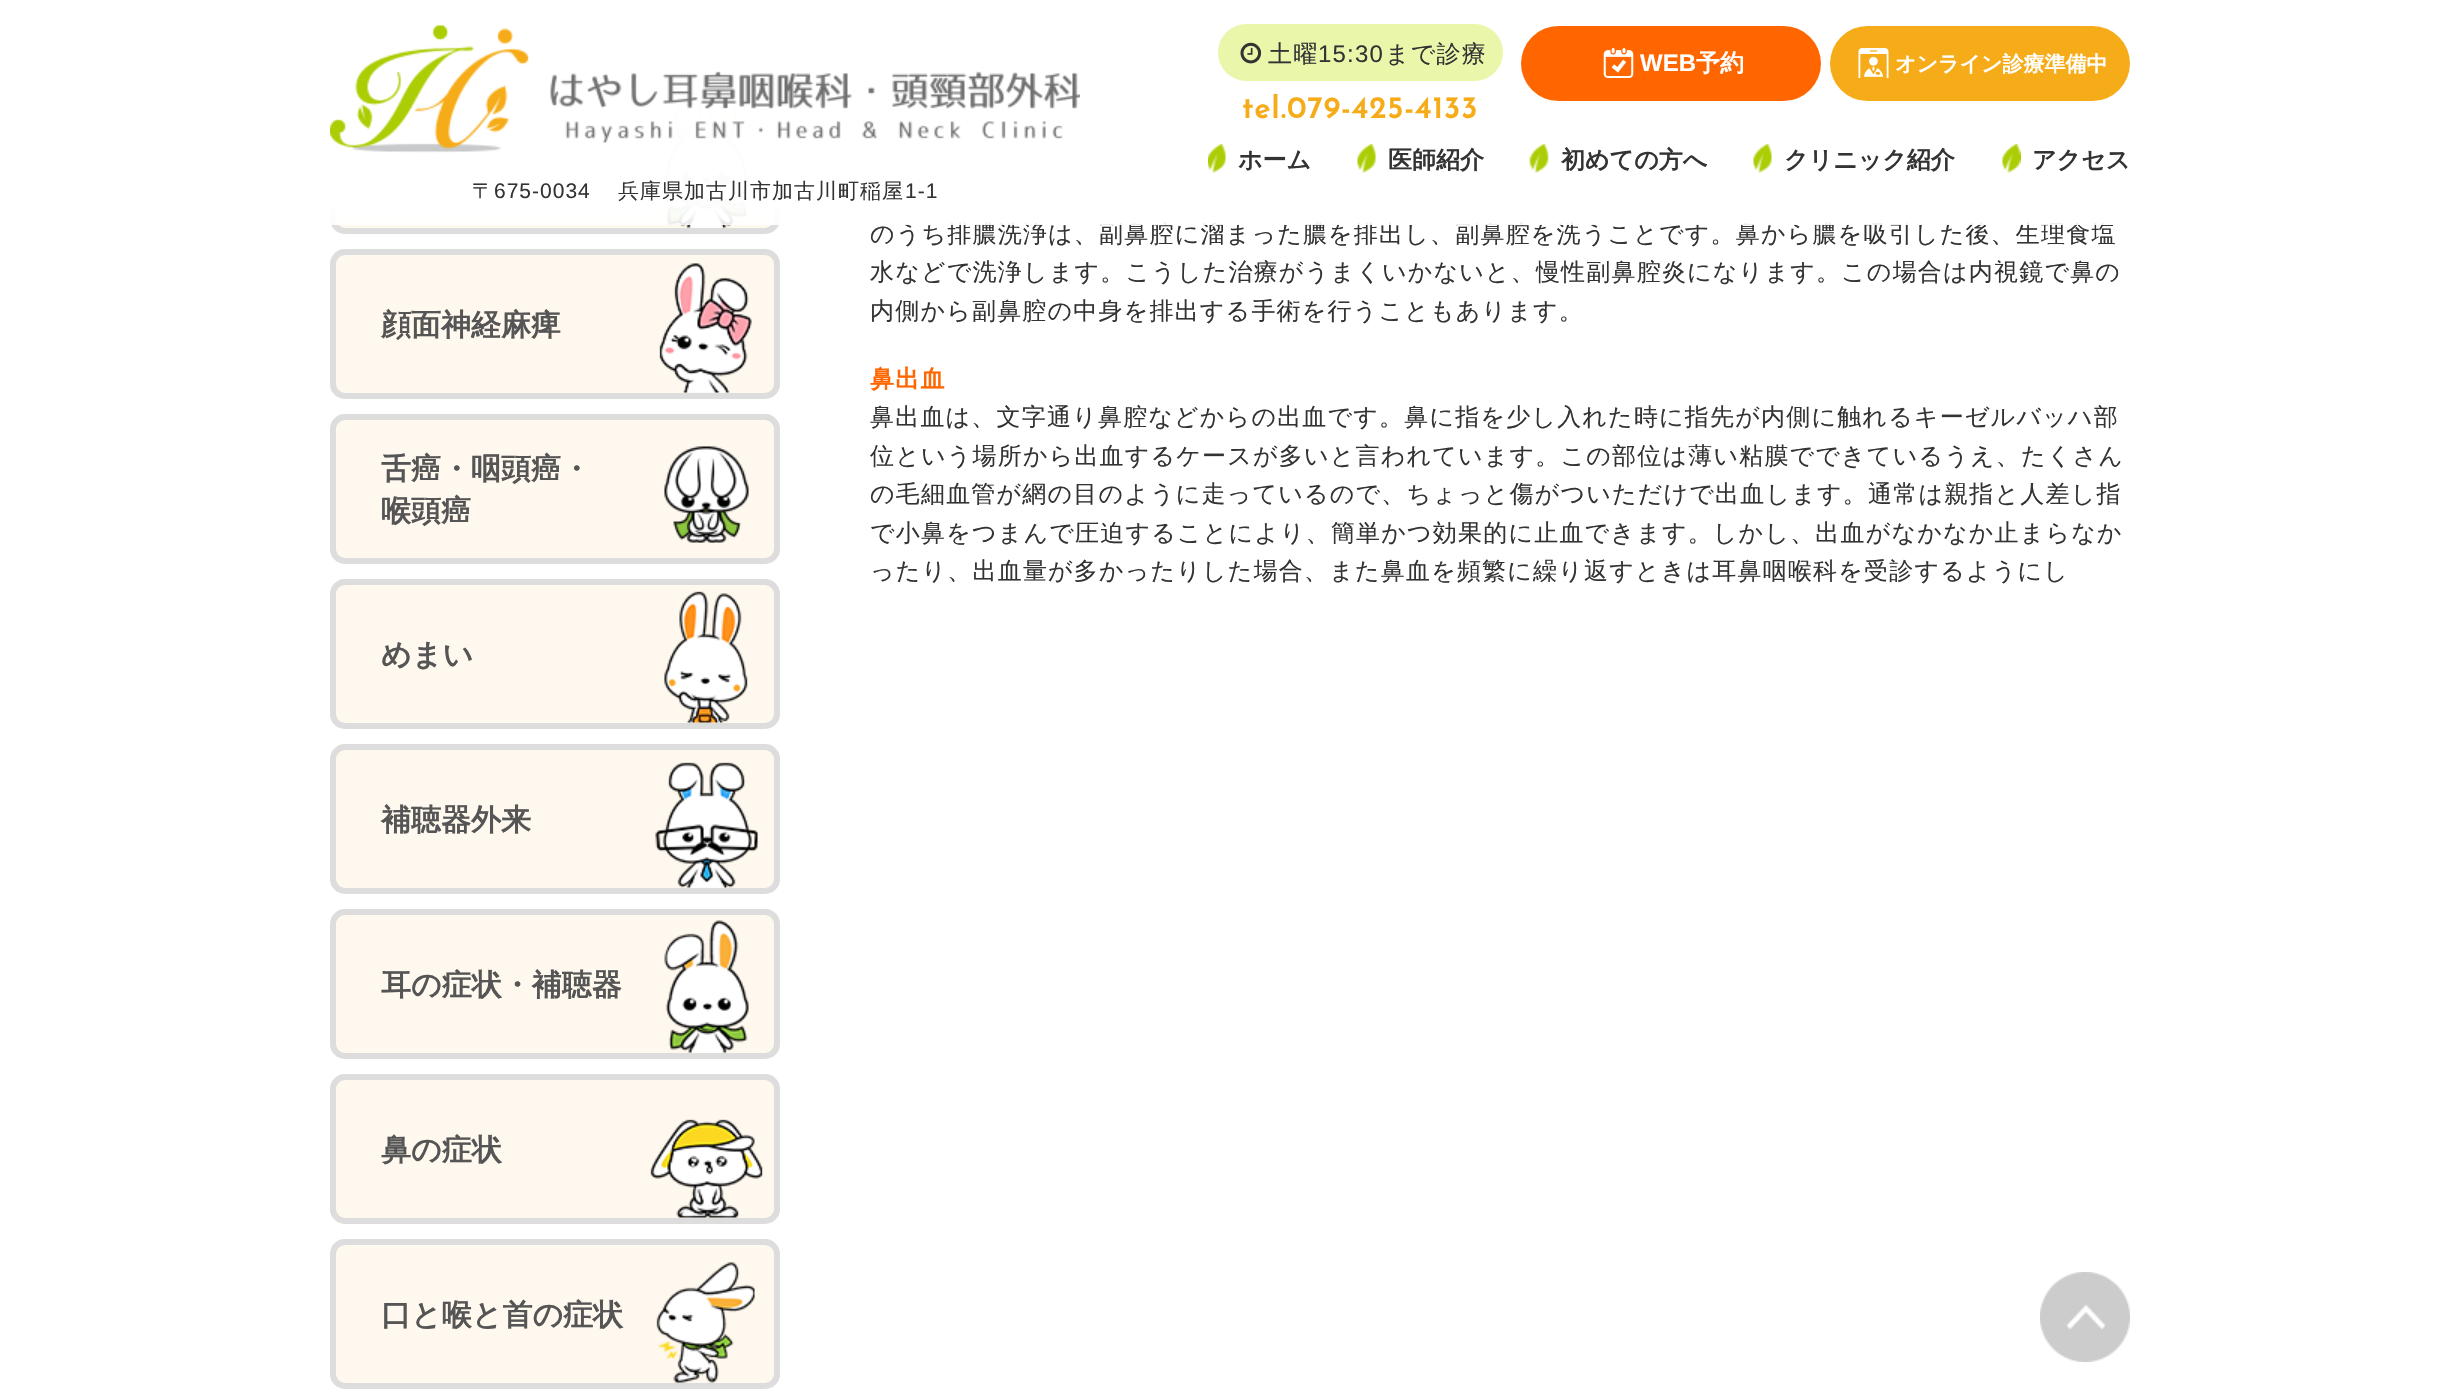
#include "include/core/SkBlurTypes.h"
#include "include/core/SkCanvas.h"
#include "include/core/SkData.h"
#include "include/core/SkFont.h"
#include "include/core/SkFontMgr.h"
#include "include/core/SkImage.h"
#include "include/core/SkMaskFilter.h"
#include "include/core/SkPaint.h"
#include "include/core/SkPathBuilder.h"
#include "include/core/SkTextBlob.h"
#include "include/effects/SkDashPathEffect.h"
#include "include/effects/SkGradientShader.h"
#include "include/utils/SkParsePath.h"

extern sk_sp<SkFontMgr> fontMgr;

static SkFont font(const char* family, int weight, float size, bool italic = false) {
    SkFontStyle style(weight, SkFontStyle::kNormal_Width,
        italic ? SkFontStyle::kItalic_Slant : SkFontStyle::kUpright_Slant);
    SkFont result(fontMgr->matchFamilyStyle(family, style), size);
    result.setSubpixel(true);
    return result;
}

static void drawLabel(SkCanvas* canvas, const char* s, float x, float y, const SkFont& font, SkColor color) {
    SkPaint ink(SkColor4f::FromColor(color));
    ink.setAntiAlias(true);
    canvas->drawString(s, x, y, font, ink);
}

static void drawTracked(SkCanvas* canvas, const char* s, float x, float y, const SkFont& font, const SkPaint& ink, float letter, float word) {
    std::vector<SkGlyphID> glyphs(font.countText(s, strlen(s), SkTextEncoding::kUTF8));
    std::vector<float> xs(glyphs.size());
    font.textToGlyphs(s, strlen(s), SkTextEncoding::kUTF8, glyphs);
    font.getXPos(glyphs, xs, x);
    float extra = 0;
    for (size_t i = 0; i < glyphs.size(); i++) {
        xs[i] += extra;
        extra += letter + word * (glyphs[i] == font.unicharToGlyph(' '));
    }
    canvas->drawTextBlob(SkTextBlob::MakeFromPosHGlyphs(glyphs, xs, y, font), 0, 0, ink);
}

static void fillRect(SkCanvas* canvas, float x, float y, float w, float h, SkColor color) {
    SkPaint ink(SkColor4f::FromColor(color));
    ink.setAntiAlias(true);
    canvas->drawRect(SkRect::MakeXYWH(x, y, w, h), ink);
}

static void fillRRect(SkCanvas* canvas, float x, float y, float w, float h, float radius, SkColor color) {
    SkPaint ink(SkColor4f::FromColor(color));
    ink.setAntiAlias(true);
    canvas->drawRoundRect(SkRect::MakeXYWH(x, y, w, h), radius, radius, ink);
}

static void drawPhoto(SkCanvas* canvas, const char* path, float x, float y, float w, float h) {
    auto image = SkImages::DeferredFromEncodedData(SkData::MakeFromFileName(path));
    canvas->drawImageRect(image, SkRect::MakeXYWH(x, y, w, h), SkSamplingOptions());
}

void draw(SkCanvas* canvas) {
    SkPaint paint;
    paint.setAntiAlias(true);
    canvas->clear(0xFFFFFFFF);
    fillRRect(canvas, 330, -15, 450, 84, 15, 0xFFFFF8EE);
    drawPhoto(canvas, "assets/img10.png", 667, 6, 76, 57);
    paint.setStroke(true);
    paint.setStrokeWidth(6);
    paint.setColor(0xFFDDDDDD);
    canvas->drawRoundRect(SkRect::MakeXYWH(333, -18, 444, 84), 12, 12, paint);
    fillRRect(canvas, 330, 84, 450, 150, 15, 0xFFFFF8EE);
    drawPhoto(canvas, "assets/img11.png", 664, 92, 85, 136);
    canvas->drawRoundRect(SkRect::MakeXYWH(333, 87, 444, 144), 12, 12, paint);
    SkFont font1 = font("WenQuanYi Zen Hei", 500, 24);
    paint.setStroke(false);
    paint.setColor(0xFF333333);
    drawTracked(canvas, "のうち排膿洗浄は、副鼻腔に溜まった膿を排出し、副鼻腔を洗うことです。鼻から膿を吸引した後、生理食塩", 870, 242, font1, paint, 1.2f, 0);
    fillRect(canvas, 330, 6, 1783, 219, 0xE6FFFFFF);
    {
        const SkColor colors[] = {0xFFFFFFFF, 0xCCFFFFFF, 0xCCFFFFFF, 0x00FFFFFF};
        const float stops[] = {0, 0.9f, 0.91f, 1};
        const SkPoint ends[] = {{1230, 0}, {1230, 225}};
        paint.setShader(SkGradientShader::MakeLinear(ends, colors, stops, 4, SkTileMode::kClamp));
        paint.setAlpha(255);
    }
    canvas->drawRect(SkRect::MakeXYWH(330, 0, 450, 222), paint);
    fillRRect(canvas, 1218, 24, 285, 57, 28.5f, 0xFFEAF7AB);
    drawPhoto(canvas, "assets/img1.png", 1240, 42, 22, 22);
    paint.setShader(nullptr);
    paint.setColor(0xFF333333);
    drawTracked(canvas, "土曜", 1268, 62, font1, paint, 1.2f, 0);
    SkFont font2 = font("Liberation Sans", 400, 24);
    drawTracked(canvas, "15:30", 1318, 62, font2, paint, 1.2f, 0);
    drawTracked(canvas, "まで診療", 1385, 62, font1, paint, 1.2f, 0);
    SkFont font3 = font("Josefin Sans", 700, 30);
    paint.setColor(0xFFF6AC18);
    drawTracked(canvas, "tel.079-425-4133", 1242, 118, font3, paint, 1.5f, 0);
    fillRRect(canvas, 1521, 26, 300, 75, 37.5f, 0xFFFF6600);
    drawPhoto(canvas, "assets/img2.png", 1603, 48, 31, 30);
    SkFont font4 = font("Liberation Sans", 700, 24);
    drawLabel(canvas, "WEB", 1640, 71, font4, 0xFFFFFFFF);
    SkFont font5 = font("WenQuanYi Zen Hei", 700, 24);
    drawLabel(canvas, "予約", 1696, 71, font5, 0xFFFFFFFF);
    fillRRect(canvas, 1830, 26, 300, 75, 37.5f, 0xFFF6AC18);
    drawPhoto(canvas, "assets/img3.png", 1858, 48, 31, 30);
    SkFont font6 = font("WenQuanYi Zen Hei", 700, 21);
    drawLabel(canvas, "オンライン診療準備中", 1895, 71, font6, 0xFFFFFFFF);
    drawPhoto(canvas, "assets/img4.png", 1208, 144, 18, 29);
    drawLabel(canvas, "ホーム", 1238, 168, font5, 0xFF333333);
    drawPhoto(canvas, "assets/img5.png", 1357, 144, 19, 29);
    drawLabel(canvas, "医師紹介", 1388, 168, font5, 0xFF333333);
    drawPhoto(canvas, "assets/img6.png", 1529, 144, 20, 29);
    drawLabel(canvas, "初めての方へ", 1561, 168, font5, 0xFF333333);
    drawPhoto(canvas, "assets/img7.png", 1753, 144, 19, 29);
    drawLabel(canvas, "クリニック紹介", 1784, 168, font5, 0xFF333333);
    drawPhoto(canvas, "assets/img8.png", 2002, 144, 19, 29);
    drawLabel(canvas, "アクセス", 2032, 168, font5, 0xFF333333);
    drawPhoto(canvas, "assets/img9.png", 330, 24, 750, 129);
    SkFont font7 = font("WenQuanYi Zen Hei", 500, 21);
    paint.setColor(0xFF333333);
    drawTracked(canvas, "〒", 472, 198, font7, paint, 1, 0);
    SkFont font8 = font("Liberation Sans", 400, 21);
    drawTracked(canvas, "675-0034", 494, 198, font8, paint, 1, 0);
    drawTracked(canvas, "兵庫県加古川市加古川町稲屋", 618, 198, font7, paint, 1, 0);
    drawTracked(canvas, "1-1", 905, 198, font8, paint, 1, 0);
    fillRRect(canvas, 330, 249, 450, 150, 15, 0xFFFFF8EE);
    drawPhoto(canvas, "assets/img12.png", 659, 263, 93, 130);
    paint.setStroke(true);
    paint.setColor(0xFFDDDDDD);
    canvas->drawRoundRect(SkRect::MakeXYWH(333, 252, 444, 144), 12, 12, paint);
    SkFont font9 = font("WenQuanYi Zen Hei", 700, 30);
    drawLabel(canvas, "顔面神経麻痺", 381, 335, font9, 0xFF555555);
    fillRRect(canvas, 330, 414, 450, 150, 15, 0xFFFFF8EE);
    drawPhoto(canvas, "assets/img13.png", 664, 446, 85, 97);
    canvas->drawRoundRect(SkRect::MakeXYWH(333, 417, 444, 144), 12, 12, paint);
    drawLabel(canvas, "舌癌・咽頭癌・", 381, 479, font9, 0xFF555555);
    drawLabel(canvas, "喉頭癌", 381, 521, font9, 0xFF555555);
    fillRRect(canvas, 330, 579, 450, 150, 15, 0xFFFFF8EE);
    drawPhoto(canvas, "assets/img14.png", 664, 591, 84, 132);
    canvas->drawRoundRect(SkRect::MakeXYWH(333, 582, 444, 144), 12, 12, paint);
    drawLabel(canvas, "めまい", 381, 665, font9, 0xFF555555);
    fillRRect(canvas, 330, 744, 450, 150, 15, 0xFFFFF8EE);
    drawPhoto(canvas, "assets/img15.png", 655, 762, 103, 126);
    canvas->drawRoundRect(SkRect::MakeXYWH(333, 747, 444, 144), 12, 12, paint);
    drawLabel(canvas, "補聴器外来", 381, 830, font9, 0xFF555555);
    fillRRect(canvas, 330, 909, 450, 150, 15, 0xFFFFF8EE);
    drawPhoto(canvas, "assets/img16.png", 664, 920, 85, 133);
    canvas->drawRoundRect(SkRect::MakeXYWH(333, 912, 444, 144), 12, 12, paint);
    drawLabel(canvas, "耳の症状・補聴器", 381, 995, font9, 0xFF555555);
    fillRRect(canvas, 330, 1074, 450, 150, 15, 0xFFFFF8EE);
    drawPhoto(canvas, "assets/img17.png", 650, 1119, 113, 99);
    canvas->drawRoundRect(SkRect::MakeXYWH(333, 1077, 444, 144), 12, 12, paint);
    drawLabel(canvas, "鼻の症状", 381, 1160, font9, 0xFF555555);
    fillRRect(canvas, 330, 1239, 450, 150, 15, 0xFFFFF8EE);
    drawPhoto(canvas, "assets/img18.png", 656, 1262, 99, 121);
    canvas->drawRoundRect(SkRect::MakeXYWH(333, 1242, 444, 144), 12, 12, paint);
    drawLabel(canvas, "口と喉と首の症状", 381, 1325, font9, 0xFF555555);
    paint.setStroke(false);
    paint.setColor(0xFF333333);
    drawTracked(canvas, "水などで洗浄します。こうした治療がうまくいかないと、慢性副鼻腔炎になります。この場合は内視鏡で鼻の", 870, 280, font1, paint, 1.2f, 0);
    drawTracked(canvas, "内側から副鼻腔の中身を排出する手術を行うこともあります。", 870, 319, font1, paint, 1.2f, 0);
    paint.setColor(0xFFFF6600);
    drawTracked(canvas, "鼻出血", 870, 387, font5, paint, 1.2f, 0);
    paint.setColor(0xFF333333);
    drawTracked(canvas, "鼻出血は、文字通り鼻腔などからの出血です。鼻に指を少し入れた時に指先が内側に触れるキーゼルバッハ部", 870, 425, font1, paint, 1.2f, 0);
    drawTracked(canvas, "位という場所から出血するケースが多いと言われています。この部位は薄い粘膜でできているうえ、たくさん", 870, 464, font1, paint, 1.2f, 0);
    drawTracked(canvas, "の毛細血管が網の目のように走っているので、ちょっと傷がついただけで出血します。通常は親指と人差し指", 870, 502, font1, paint, 1.2f, 0);
    drawTracked(canvas, "で小鼻をつまんで圧迫することにより、簡単かつ効果的に止血できます。しかし、出血がなかなか止まらなか", 870, 541, font1, paint, 1.2f, 0);
    drawTracked(canvas, "ったり、出血量が多かったりした場合、また鼻血を頻繁に繰り返すときは耳鼻咽喉科を受診するようにし", 870, 579, font1, paint, 1.2f, 0);
    drawPhoto(canvas, "assets/img19.png", 2040, 1272, 90, 90);
}
